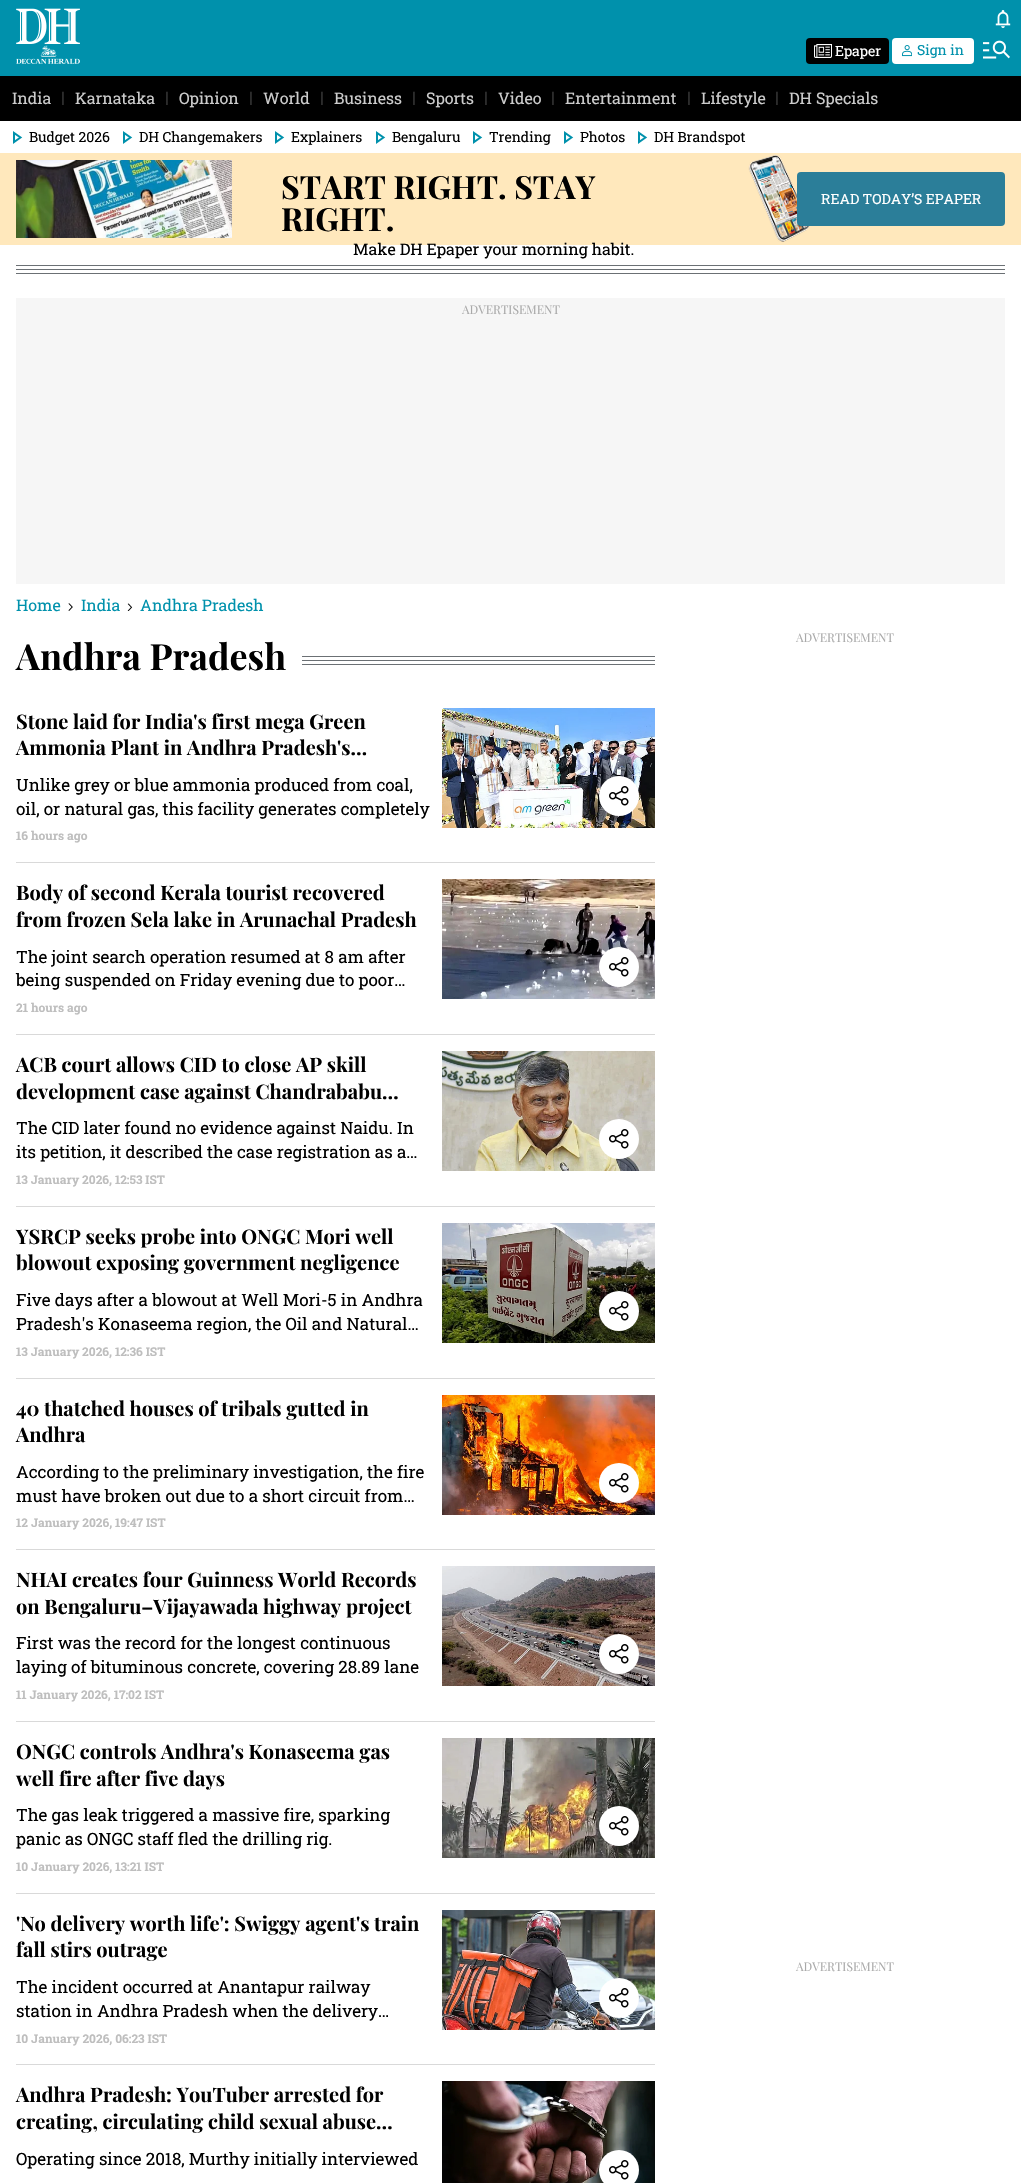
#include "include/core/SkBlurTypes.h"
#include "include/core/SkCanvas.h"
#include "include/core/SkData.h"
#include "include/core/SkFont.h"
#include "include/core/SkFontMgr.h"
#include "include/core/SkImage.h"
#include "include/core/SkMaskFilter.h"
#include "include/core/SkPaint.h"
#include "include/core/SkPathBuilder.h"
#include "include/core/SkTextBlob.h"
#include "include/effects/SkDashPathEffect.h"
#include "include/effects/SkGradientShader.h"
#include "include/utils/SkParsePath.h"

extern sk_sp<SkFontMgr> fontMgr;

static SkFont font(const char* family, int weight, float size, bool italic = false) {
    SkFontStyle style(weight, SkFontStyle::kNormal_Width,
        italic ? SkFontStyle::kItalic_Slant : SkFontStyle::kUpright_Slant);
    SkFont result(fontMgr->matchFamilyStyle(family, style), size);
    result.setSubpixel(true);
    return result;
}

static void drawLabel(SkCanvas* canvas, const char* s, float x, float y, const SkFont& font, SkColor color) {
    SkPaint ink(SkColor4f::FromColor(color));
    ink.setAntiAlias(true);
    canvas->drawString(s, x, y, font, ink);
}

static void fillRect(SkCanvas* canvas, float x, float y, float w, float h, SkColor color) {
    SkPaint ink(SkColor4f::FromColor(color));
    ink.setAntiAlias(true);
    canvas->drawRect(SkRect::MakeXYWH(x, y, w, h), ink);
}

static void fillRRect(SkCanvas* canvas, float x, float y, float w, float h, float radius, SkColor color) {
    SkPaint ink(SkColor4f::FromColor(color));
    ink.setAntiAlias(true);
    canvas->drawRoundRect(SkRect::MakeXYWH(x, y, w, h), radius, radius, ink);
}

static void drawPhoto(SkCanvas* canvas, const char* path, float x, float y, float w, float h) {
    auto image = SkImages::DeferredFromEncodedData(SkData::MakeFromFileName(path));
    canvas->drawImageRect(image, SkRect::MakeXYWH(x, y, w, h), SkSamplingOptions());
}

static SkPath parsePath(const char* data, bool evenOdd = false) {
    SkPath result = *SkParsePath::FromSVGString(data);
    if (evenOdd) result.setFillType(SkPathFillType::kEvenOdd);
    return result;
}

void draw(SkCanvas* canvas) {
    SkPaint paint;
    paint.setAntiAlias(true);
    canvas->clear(0xFFFFFFFF);
    fillRect(canvas, 0, 0, 1021, 76, 0xFF0091AC);
    drawPhoto(canvas, "assets/img1.png", 16, 8, 64, 56);
    drawPhoto(canvas, "assets/img2.png", 995, 10, 16, 18);
    fillRRect(canvas, 806, 38, 83, 26, 4, 0xFF000000);
    drawPhoto(canvas, "assets/img3.png", 814, 44, 18, 14);
    SkFont font1 = font("Roboto Slab", 400, 14);
    drawLabel(canvas, "Epaper", 835, 56, font1, 0xFFFFFFFF);
    fillRRect(canvas, 892, 38, 82, 26, 4, 0xFFFFFFFF);
    drawPhoto(canvas, "assets/img4.png", 902, 45, 10, 12);
    drawLabel(canvas, "Sign in", 917, 55, font1, 0xFF0091AC);
    drawPhoto(canvas, "assets/img5.png", 983, 40, 27, 19);
    fillRect(canvas, 0, 76, 1021, 45, 0xFF000000);
    SkFont font2 = font("Roboto Slab", 400, 16);
    drawLabel(canvas, "India", 12, 104, font2, 0xFFCCCCCC);
    SkFont font3 = font("Roboto", 400, 16);
    drawLabel(canvas, "|", 61, 103, font3, 0xFF3D3D3D);
    drawLabel(canvas, "Karnataka", 75, 104, font2, 0xFFCCCCCC);
    drawLabel(canvas, "|", 165, 103, font3, 0xFF3D3D3D);
    drawLabel(canvas, "Opinion", 179, 104, font2, 0xFFCCCCCC);
    drawLabel(canvas, "|", 249, 103, font3, 0xFF3D3D3D);
    drawLabel(canvas, "World", 263, 104, font2, 0xFFCCCCCC);
    drawLabel(canvas, "|", 320, 103, font3, 0xFF3D3D3D);
    drawLabel(canvas, "Business", 334, 104, font2, 0xFFCCCCCC);
    drawLabel(canvas, "|", 412, 103, font3, 0xFF3D3D3D);
    drawLabel(canvas, "Sports", 426, 104, font2, 0xFFCCCCCC);
    drawLabel(canvas, "|", 484, 103, font3, 0xFF3D3D3D);
    drawLabel(canvas, "Video", 498, 104, font2, 0xFFCCCCCC);
    drawLabel(canvas, "|", 551, 103, font3, 0xFF3D3D3D);
    drawLabel(canvas, "Entertainment", 565, 104, font2, 0xFFCCCCCC);
    drawLabel(canvas, "|", 687, 103, font3, 0xFF3D3D3D);
    drawLabel(canvas, "Lifestyle", 701, 104, font2, 0xFFCCCCCC);
    drawLabel(canvas, "|", 775, 103, font3, 0xFF3D3D3D);
    drawLabel(canvas, "DH Specials", 789, 104, font2, 0xFFCCCCCC);
    paint.setStroke(true);
    paint.setStrokeWidth(2);
    paint.setColor(0xFF0091AC);
    canvas->drawPath(parsePath("M20.5 137.5L14 142V133Z"), paint);
    drawLabel(canvas, "Budget 2026", 29, 142, font1, 0xFF000000);
    canvas->drawPath(parsePath("M130.5 137.5L124 142V133Z"), paint);
    drawLabel(canvas, "DH Changemakers", 139, 142, font1, 0xFF000000);
    canvas->drawPath(parsePath("M282.5 137.5L276 142V133Z"), paint);
    drawLabel(canvas, "Explainers", 291, 142, font1, 0xFF000000);
    canvas->drawPath(parsePath("M383.5 137.5L377 142V133Z"), paint);
    drawLabel(canvas, "Bengaluru", 392, 142, font1, 0xFF000000);
    canvas->drawPath(parsePath("M480.5 137.5L474 142V133Z"), paint);
    drawLabel(canvas, "Trending", 489, 142, font1, 0xFF000000);
    canvas->drawPath(parsePath("M571.5 137.5L565 142V133Z"), paint);
    drawLabel(canvas, "Photos", 580, 142, font1, 0xFF000000);
    canvas->drawPath(parsePath("M645.5 137.5L639 142V133Z"), paint);
    drawLabel(canvas, "DH Brandspot", 654, 142, font1, 0xFF000000);
    fillRect(canvas, 0, 153, 1021, 92, 0xFFFFE8BC);
    drawPhoto(canvas, "assets/img6.png", 16, 160, 216, 78);
    SkFont font4 = font("Playfair Display", 700, 32);
    drawLabel(canvas, "START RIGHT. STAY", 281, 199, font4, 0xFF000000);
    drawLabel(canvas, "RIGHT.", 281, 231, font4, 0xFF000000);
    drawLabel(canvas, "Make DH Epaper your morning habit.", 353, 255, font2, 0xFF000000);
    drawPhoto(canvas, "assets/img7.png", 748, 155, 62, 87);
    fillRRect(canvas, 797, 172, 208, 54, 4, 0xFF2B7E99);
    drawLabel(canvas, "READ TODAY’S EPAPER", 821, 204, font1, 0xFFFFFFFF);
    fillRect(canvas, 16, 265, 989, 1, 0xFF6B7074);
    fillRect(canvas, 16, 269, 989, 1, 0xFF6B7074);
    fillRect(canvas, 16, 273, 989, 1, 0xFF6B7074);
    fillRect(canvas, 16, 298, 989, 286, 0xFFF6F6F6);
    SkFont font5 = font("Playfair Display", 400, 12);
    drawLabel(canvas, "ADVERTISEMENT", 462, 314, font5, 0xFFA9A9A9);
    drawLabel(canvas, "Home", 16, 611, font2, 0xFF0091AC);
    drawPhoto(canvas, "assets/img8.png", 68, 603, 5, 8);
    drawLabel(canvas, "India", 81, 611, font2, 0xFF0091AC);
    drawPhoto(canvas, "assets/img9.png", 127, 603, 6, 8);
    drawLabel(canvas, "Andhra Pradesh", 140, 611, font2, 0xFF0091AC);
    SkFont font6 = font("Playfair Display", 700, 36);
    drawLabel(canvas, "Andhra Pradesh", 16, 670, font6, 0xFF000000);
    fillRect(canvas, 302, 656, 353, 1, 0xFF6B7074);
    fillRect(canvas, 302, 660, 353, 1, 0xFF6B7074);
    fillRect(canvas, 302, 664, 353, 1, 0xFF6B7074);
    fillRect(canvas, 16, 862, 639, 1, 0xFFD9D9D9);
    SkFont font7 = font("Playfair Display", 700, 20);
    drawLabel(canvas, "Stone laid for India's first mega Green", 16, 729, font7, 0xFF000000);
    drawLabel(canvas, "Ammonia Plant in Andhra Pradesh's…", 16, 755, font7, 0xFF000000);
    SkFont font8 = font("Roboto Slab", 400, 17);
    drawLabel(canvas, "Unlike grey or blue ammonia produced from coal,", 16, 791, font8, 0xFF000000);
    drawLabel(canvas, "oil, or natural gas, this facility generates completely", 16, 815, font8, 0xFF000000);
    SkFont font9 = font("Roboto Slab", 700, 12);
    drawLabel(canvas, "16 hours ago", 16, 840, font9, 0xFFBEBEBE);
    drawPhoto(canvas, "assets/img10.png", 442, 708, 213, 120);
    paint.setStroke(false);
    paint.setColor(0xFFFFFFFF);
    canvas->drawCircle(619, 796, 20, paint);
    drawPhoto(canvas, "assets/img11.png", 609, 786, 20, 20);
    fillRect(canvas, 16, 1034, 639, 1, 0xFFD9D9D9);
    drawLabel(canvas, "Body of second Kerala tourist recovered", 16, 900, font7, 0xFF000000);
    drawLabel(canvas, "from frozen Sela lake in Arunachal Pradesh", 16, 927, font7, 0xFF000000);
    drawLabel(canvas, "The joint search operation resumed at 8 am after", 16, 963, font8, 0xFF000000);
    drawLabel(canvas, "being suspended on Friday evening due to poor…", 16, 986, font8, 0xFF000000);
    drawLabel(canvas, "21 hours ago", 16, 1012, font9, 0xFFBEBEBE);
    drawPhoto(canvas, "assets/img12.png", 442, 879, 213, 120);
    canvas->drawCircle(619, 967, 20, paint);
    drawPhoto(canvas, "assets/img11.png", 609, 957, 20, 20);
    fillRect(canvas, 16, 1206, 639, 1, 0xFFD9D9D9);
    drawLabel(canvas, "ACB court allows CID to close AP skill", 16, 1072, font7, 0xFF000000);
    drawLabel(canvas, "development case against Chandrababu…", 16, 1099, font7, 0xFF000000);
    drawLabel(canvas, "The CID later found no evidence against Naidu. In", 16, 1134, font8, 0xFF000000);
    drawLabel(canvas, "its petition, it described the case registration as a…", 16, 1158, font8, 0xFF000000);
    drawLabel(canvas, "13 January 2026, 12:53 IST", 16, 1184, font9, 0xFFBEBEBE);
    drawPhoto(canvas, "assets/img13.png", 442, 1051, 213, 120);
    canvas->drawCircle(619, 1139, 20, paint);
    drawPhoto(canvas, "assets/img11.png", 609, 1129, 20, 20);
    fillRect(canvas, 16, 1378, 639, 1, 0xFFD9D9D9);
    drawLabel(canvas, "YSRCP seeks probe into ONGC Mori well", 16, 1244, font7, 0xFF000000);
    drawLabel(canvas, "blowout exposing government negligence", 16, 1270, font7, 0xFF000000);
    drawLabel(canvas, "Five days after a blowout at Well Mori-5 in Andhra", 16, 1306, font8, 0xFF000000);
    drawLabel(canvas, "Pradesh's Konaseema region, the Oil and Natural…", 16, 1330, font8, 0xFF000000);
    drawLabel(canvas, "13 January 2026, 12:36 IST", 16, 1356, font9, 0xFFBEBEBE);
    drawPhoto(canvas, "assets/img14.png", 442, 1223, 213, 120);
    canvas->drawCircle(619, 1311, 20, paint);
    drawPhoto(canvas, "assets/img11.png", 609, 1301, 20, 20);
    fillRect(canvas, 16, 1549, 639, 1, 0xFFD9D9D9);
    drawLabel(canvas, "40 thatched houses of tribals gutted in", 16, 1416, font7, 0xFF000000);
    drawLabel(canvas, "Andhra", 16, 1442, font7, 0xFF000000);
    drawLabel(canvas, "According to the preliminary investigation, the fire", 16, 1478, font8, 0xFF000000);
    drawLabel(canvas, "must have broken out due to a short circuit from…", 16, 1502, font8, 0xFF000000);
    drawLabel(canvas, "12 January 2026, 19:47 IST", 16, 1527, font9, 0xFFBEBEBE);
    drawPhoto(canvas, "assets/img15.png", 442, 1395, 213, 120);
    canvas->drawCircle(619, 1483, 20, paint);
    drawPhoto(canvas, "assets/img11.png", 609, 1473, 20, 20);
    fillRect(canvas, 16, 1721, 639, 1, 0xFFD9D9D9);
    drawLabel(canvas, "NHAI creates four Guinness World Records", 16, 1587, font7, 0xFF000000);
    drawLabel(canvas, "on Bengaluru–Vijayawada highway project", 16, 1614, font7, 0xFF000000);
    drawLabel(canvas, "First was the record for the longest continuous", 16, 1649, font8, 0xFF000000);
    drawLabel(canvas, "laying of bituminous concrete, covering 28.89 lane", 16, 1673, font8, 0xFF000000);
    drawLabel(canvas, "11 January 2026, 17:02 IST", 16, 1699, font9, 0xFFBEBEBE);
    drawPhoto(canvas, "assets/img16.png", 442, 1566, 213, 120);
    canvas->drawCircle(619, 1654, 20, paint);
    drawPhoto(canvas, "assets/img11.png", 609, 1644, 20, 20);
    fillRect(canvas, 16, 1893, 639, 1, 0xFFD9D9D9);
    drawLabel(canvas, "ONGC controls Andhra's Konaseema gas", 16, 1759, font7, 0xFF000000);
    drawLabel(canvas, "well fire after five days", 16, 1786, font7, 0xFF000000);
    drawLabel(canvas, "The gas leak triggered a massive fire, sparking", 16, 1821, font8, 0xFF000000);
    drawLabel(canvas, "panic as ONGC staff fled the drilling rig.", 16, 1845, font8, 0xFF000000);
    drawLabel(canvas, "10 January 2026, 13:21 IST", 16, 1871, font9, 0xFFBEBEBE);
    drawPhoto(canvas, "assets/img17.png", 442, 1738, 213, 120);
    canvas->drawCircle(619, 1826, 20, paint);
    drawPhoto(canvas, "assets/img11.png", 609, 1816, 20, 20);
    fillRect(canvas, 16, 2064, 639, 1, 0xFFD9D9D9);
    drawLabel(canvas, "'No delivery worth life': Swiggy agent's train", 16, 1931, font7, 0xFF000000);
    drawLabel(canvas, "fall stirs outrage", 16, 1957, font7, 0xFF000000);
    drawLabel(canvas, "The incident occurred at Anantapur railway", 16, 1993, font8, 0xFF000000);
    drawLabel(canvas, "station in Andhra Pradesh when the delivery…", 16, 2017, font8, 0xFF000000);
    drawLabel(canvas, "10 January 2026, 06:23 IST", 16, 2043, font9, 0xFFBEBEBE);
    drawPhoto(canvas, "assets/img18.png", 442, 1910, 213, 120);
    canvas->drawCircle(619, 1998, 20, paint);
    drawPhoto(canvas, "assets/img11.png", 609, 1988, 20, 20);
    drawLabel(canvas, "Andhra Pradesh: YouTuber arrested for", 16, 2102, font7, 0xFF000000);
    drawLabel(canvas, "creating, circulating child sexual abuse…", 16, 2129, font7, 0xFF000000);
    drawLabel(canvas, "Operating since 2018, Murthy initially interviewed", 16, 2165, font8, 0xFF000000);
    drawPhoto(canvas, "assets/img19.png", 442, 2081, 213, 102);
    canvas->drawCircle(619, 2170, 20, paint);
    drawPhoto(canvas, "assets/img11.png", 609, 2160, 20, 20);
    drawLabel(canvas, "ADVERTISEMENT", 796, 642, font5, 0xFFA9A9A9);
    drawLabel(canvas, "ADVERTISEMENT", 796, 1971, font5, 0xFFA9A9A9);
}
